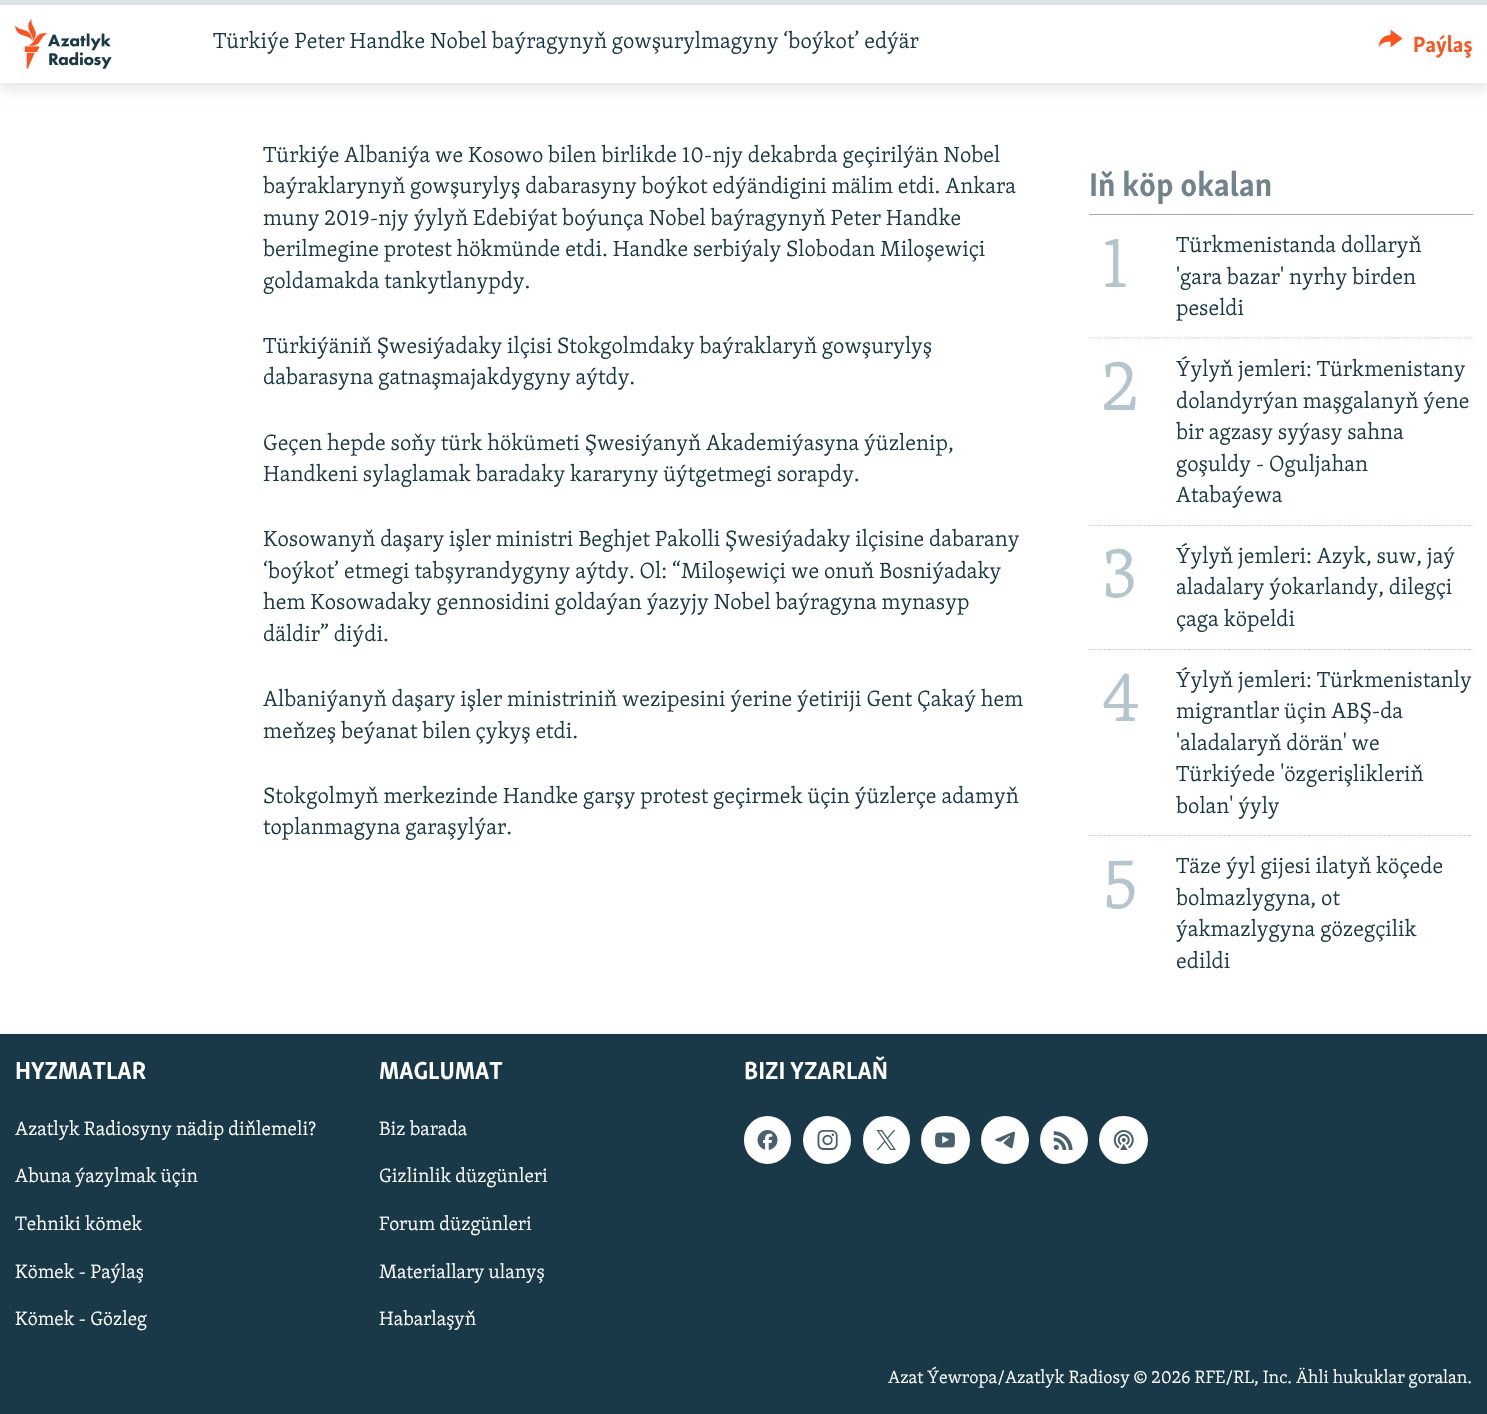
#include "include/core/SkBlurTypes.h"
#include "include/core/SkCanvas.h"
#include "include/core/SkData.h"
#include "include/core/SkFont.h"
#include "include/core/SkFontMgr.h"
#include "include/core/SkImage.h"
#include "include/core/SkMaskFilter.h"
#include "include/core/SkPaint.h"
#include "include/core/SkPathBuilder.h"
#include "include/core/SkTextBlob.h"
#include "include/effects/SkDashPathEffect.h"
#include "include/effects/SkGradientShader.h"
#include "include/utils/SkParsePath.h"

extern sk_sp<SkFontMgr> fontMgr;

static SkFont font(const char* family, int weight, float size, bool italic = false) {
    SkFontStyle style(weight, SkFontStyle::kNormal_Width,
        italic ? SkFontStyle::kItalic_Slant : SkFontStyle::kUpright_Slant);
    SkFont result(fontMgr->matchFamilyStyle(family, style), size);
    result.setSubpixel(true);
    return result;
}

static void drawLabel(SkCanvas* canvas, const char* s, float x, float y, const SkFont& font, SkColor color) {
    SkPaint ink(SkColor4f::FromColor(color));
    ink.setAntiAlias(true);
    canvas->drawString(s, x, y, font, ink);
}

static void fillRect(SkCanvas* canvas, float x, float y, float w, float h, SkColor color) {
    SkPaint ink(SkColor4f::FromColor(color));
    ink.setAntiAlias(true);
    canvas->drawRect(SkRect::MakeXYWH(x, y, w, h), ink);
}

static void fillRRect(SkCanvas* canvas, float x, float y, float w, float h, float radius, SkColor color) {
    SkPaint ink(SkColor4f::FromColor(color));
    ink.setAntiAlias(true);
    canvas->drawRoundRect(SkRect::MakeXYWH(x, y, w, h), radius, radius, ink);
}

static void drawPhoto(SkCanvas* canvas, const char* path, float x, float y, float w, float h) {
    auto image = SkImages::DeferredFromEncodedData(SkData::MakeFromFileName(path));
    canvas->drawImageRect(image, SkRect::MakeXYWH(x, y, w, h), SkSamplingOptions());
}

static SkPath parsePath(const char* data, bool evenOdd = false) {
    SkPath result = *SkParsePath::FromSVGString(data);
    if (evenOdd) result.setFillType(SkPathFillType::kEvenOdd);
    return result;
}

void draw(SkCanvas* canvas) {
    SkPaint paint;
    paint.setAntiAlias(true);
    canvas->clear(0xFFFFFFFF);
    paint.setColor(0x1A000000);
    paint.setMaskFilter(SkMaskFilter::MakeBlur(kNormal_SkBlurStyle, 6));
    canvas->drawRect(SkRect::MakeXYWH(0, 6, 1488, 83), paint);
    paint.setMaskFilter(nullptr);
    fillRect(canvas, 0, 5, 1487, 78, 0xFFFFFFFF);
    fillRect(canvas, 0, 0, 1487, 5, 0xFFDCE4E8);
    drawPhoto(canvas, "assets/img1.png", 15, 19, 97, 50);
    SkFont font1 = font("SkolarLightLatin", 300, 22.5f);
    drawLabel(canvas, "Türkiýe Peter Handke Nobel baýragynyň gowşurylmagyny ‘boýkot’ edýär", 213, 48, font1, 0xFF1A3948);
    drawPhoto(canvas, "assets/img2.png", 1378, 29, 25, 19);
    SkFont font2 = font("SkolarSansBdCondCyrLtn", 700, 22.5f);
    drawLabel(canvas, "Paýlaş", 1413, 52, font2, 0xFFFA5420);
    drawLabel(canvas, "Türkiýe Albaniýa we Kosowo bilen birlikde 10-njy dekabrda geçirilýän Nobel", 263, 162, font1, 0xFF1A3948);
    drawLabel(canvas, "baýraklarynyň gowşurylyş dabarasyny boýkot edýändigini mälim etdi. Ankara", 263, 193, font1, 0xFF1A3948);
    drawLabel(canvas, "muny 2019-njy ýylyň Edebiýat boýunça Nobel baýragynyň Peter Handke", 263, 225, font1, 0xFF1A3948);
    drawLabel(canvas, "berilmegine protest hökmünde etdi. Handke serbiýaly Slobodan Miloşewiçi", 263, 256, font1, 0xFF1A3948);
    drawLabel(canvas, "goldamakda tankytlanypdy.", 263, 288, font1, 0xFF1A3948);
    drawLabel(canvas, "Türkiýäniň Şwesiýadaky ilçisi Stokgolmdaky baýraklaryň gowşurylyş", 263, 353, font1, 0xFF1A3948);
    drawLabel(canvas, "dabarasyna gatnaşmajakdygyny aýtdy.", 263, 384, font1, 0xFF1A3948);
    drawLabel(canvas, "Geçen hepde soňy türk hökümeti Şwesiýanyň Akademiýasyna ýüzlenip,", 263, 450, font1, 0xFF1A3948);
    drawLabel(canvas, "Handkeni sylaglamak baradaky kararyny üýtgetmegi sorapdy.", 263, 481, font1, 0xFF1A3948);
    drawLabel(canvas, "Kosowanyň daşary işler ministri Beghjet Pakolli Şwesiýadaky ilçisine dabarany", 263, 546, font1, 0xFF1A3948);
    drawLabel(canvas, "‘boýkot’ etmegi tabşyrandygyny aýtdy. Ol: “Miloşewiçi we onuň Bosniýadaky", 263, 578, font1, 0xFF1A3948);
    drawLabel(canvas, "hem Kosowadaky gennosidini goldaýan ýazyjy Nobel baýragyna mynasyp", 263, 609, font1, 0xFF1A3948);
    drawLabel(canvas, "däldir” diýdi.", 263, 641, font1, 0xFF1A3948);
    drawLabel(canvas, "Albaniýanyň daşary işler ministriniň wezipesini ýerine ýetiriji Gent Çakaý hem", 263, 706, font1, 0xFF1A3948);
    drawLabel(canvas, "meňzeş beýanat bilen çykyş etdi.", 263, 738, font1, 0xFF1A3948);
    drawLabel(canvas, "Stokgolmyň merkezinde Handke garşy protest geçirmek üçin ýüzlerçe adamyň", 263, 803, font1, 0xFF1A3948);
    drawLabel(canvas, "toplanmagyna garaşylýar.", 263, 834, font1, 0xFF1A3948);
    fillRect(canvas, 1089, 214, 384, 1, 0xFF95ADB9);
    SkFont font3 = font("SkolarSansBdCondCyrLtn", 700, 33.75f);
    drawLabel(canvas, "Iň köp okalan", 1089, 196, font3, 0xFF71838D);
    SkFont font4 = font("SkolarLightLatin", 300, 74);
    drawLabel(canvas, "1", 1101, 287, font4, 0xFFB4C5CD);
    drawLabel(canvas, "Türkmenistanda dollaryň", 1176, 252, font1, 0xFF1A3948);
    drawLabel(canvas, "'gara bazar' nyrhy birden", 1176, 284, font1, 0xFF1A3948);
    drawLabel(canvas, "peseldi", 1176, 315, font1, 0xFF1A3948);
    paint.setStroke(true);
    paint.setStrokeWidth(1.2f);
    paint.setColor(0xFFB4C5CD);
    paint.setPathEffect(SkDashPathEffect::Make({{1.25f, 1.25f}}, 0));
    canvas->drawPath(parsePath("M1089 338H1472.5"), paint);
    paint.setPathEffect(nullptr);
    drawLabel(canvas, "2", 1101, 410, font4, 0xFFB4C5CD);
    drawLabel(canvas, "Ýylyň jemleri: Türkmenistany", 1176, 376, font1, 0xFF1A3948);
    drawLabel(canvas, "dolandyrýan maşgalanyň ýene", 1176, 408, font1, 0xFF1A3948);
    drawLabel(canvas, "bir agzasy syýasy sahna", 1176, 439, font1, 0xFF1A3948);
    drawLabel(canvas, "goşuldy - Oguljahan", 1176, 471, font1, 0xFF1A3948);
    drawLabel(canvas, "Atabaýewa", 1176, 502, font1, 0xFF1A3948);
    paint.setPathEffect(SkDashPathEffect::Make({{1.25f, 1.25f}}, 0));
    canvas->drawPath(parsePath("M1089 525.5H1472.5"), paint);
    paint.setPathEffect(nullptr);
    drawLabel(canvas, "3", 1101, 597, font4, 0xFFB4C5CD);
    drawLabel(canvas, "Ýylyň jemleri: Azyk, suw, jaý", 1176, 563, font1, 0xFF1A3948);
    drawLabel(canvas, "aladalary ýokarlandy, dilegçi", 1176, 594, font1, 0xFF1A3948);
    drawLabel(canvas, "çaga köpeldi", 1176, 626, font1, 0xFF1A3948);
    paint.setPathEffect(SkDashPathEffect::Make({{1.25f, 1.25f}}, 0));
    canvas->drawPath(parsePath("M1089 649.5H1472.5"), paint);
    paint.setPathEffect(nullptr);
    drawLabel(canvas, "4", 1101, 721, font4, 0xFFB4C5CD);
    drawLabel(canvas, "Ýylyň jemleri: Türkmenistanly", 1176, 687, font1, 0xFF1A3948);
    drawLabel(canvas, "migrantlar üçin ABŞ-da", 1176, 718, font1, 0xFF1A3948);
    drawLabel(canvas, "'aladalaryň dörän' we", 1176, 750, font1, 0xFF1A3948);
    drawLabel(canvas, "Türkiýede 'özgerişlikleriň", 1176, 781, font1, 0xFF1A3948);
    drawLabel(canvas, "bolan' ýyly", 1176, 813, font1, 0xFF1A3948);
    paint.setPathEffect(SkDashPathEffect::Make({{1.25f, 1.25f}}, 0));
    canvas->drawPath(parsePath("M1089 835.5H1472.5"), paint);
    paint.setPathEffect(nullptr);
    drawLabel(canvas, "5", 1101, 908, font4, 0xFFB4C5CD);
    drawLabel(canvas, "Täze ýyl gijesi ilatyň köçede", 1176, 873, font1, 0xFF1A3948);
    drawLabel(canvas, "bolmazlygyna, ot", 1176, 905, font1, 0xFF1A3948);
    drawLabel(canvas, "ýakmazlygyna gözegçilik", 1176, 936, font1, 0xFF1A3948);
    drawLabel(canvas, "edildi", 1176, 968, font1, 0xFF1A3948);
    fillRect(canvas, 0, 1034, 1487, 380, 0xFF1A3948);
    SkFont font5 = font("SkolarSansBdCondCyrLtn", 700, 25.25f);
    drawLabel(canvas, "HYZMATLAR", 15, 1079, font5, 0xFFFFFFFF);
    SkFont font6 = font("SkolarLightLatin", 300, 19.75f);
    drawLabel(canvas, "Azatlyk Radiosyny nädip diňlemeli?", 15, 1135, font6, 0xFFFFFFFF);
    drawLabel(canvas, "Abuna ýazylmak üçin", 15, 1182, font6, 0xFFFFFFFF);
    drawLabel(canvas, "Tehniki kömek", 15, 1230, font6, 0xFFFFFFFF);
    drawLabel(canvas, "Kömek - Paýlaş", 15, 1278, font6, 0xFFFFFFFF);
    drawLabel(canvas, "Kömek - Gözleg", 15, 1325, font6, 0xFFFFFFFF);
    drawLabel(canvas, "MAGLUMAT", 379, 1079, font5, 0xFFFFFFFF);
    drawLabel(canvas, "Biz barada", 379, 1135, font6, 0xFFFFFFFF);
    drawLabel(canvas, "Gizlinlik düzgünleri", 379, 1182, font6, 0xFFFFFFFF);
    drawLabel(canvas, "Forum düzgünleri", 379, 1230, font6, 0xFFFFFFFF);
    drawLabel(canvas, "Materiallary ulanyş", 379, 1278, font6, 0xFFFFFFFF);
    drawLabel(canvas, "Habarlaşyň", 379, 1325, font6, 0xFFFFFFFF);
    drawLabel(canvas, "BIZI YZARLAŇ", 744, 1079, font5, 0xFFFFFFFF);
    fillRRect(canvas, 744, 1116, 47, 48, 23.5f, 0xFFFFFFFF);
    drawPhoto(canvas, "assets/img3.png", 757, 1130, 21, 20);
    paint.setStroke(false);
    paint.setColor(0xFFFFFFFF);
    canvas->drawCircle(827, 1140, 24, paint);
    drawPhoto(canvas, "assets/img4.png", 817, 1130, 21, 20);
    fillRRect(canvas, 863, 1116, 47, 48, 23.5f, 0xFFFFFFFF);
    drawPhoto(canvas, "assets/img5.png", 876, 1130, 20, 20);
    fillRRect(canvas, 921, 1116, 49, 48, 24, 0xFFFFFFFF);
    drawPhoto(canvas, "assets/img6.png", 935, 1132, 20, 16);
    canvas->drawCircle(1005, 1140, 24, paint);
    drawPhoto(canvas, "assets/img7.png", 995, 1131, 20, 18);
    canvas->drawCircle(1064, 1140, 24, paint);
    drawPhoto(canvas, "assets/img8.png", 1053, 1131, 20, 19);
    fillRRect(canvas, 1099, 1116, 49, 48, 24, 0xFFFFFFFF);
    drawPhoto(canvas, "assets/img9.png", 1113, 1130, 21, 20);
    SkFont font7 = font("SkolarLightLatin", 300, 18.25f);
    drawLabel(canvas, "Azat Ýewropa/Azatlyk Radiosy © 2026 RFE/RL, Inc. Ähli hukuklar goralan.", 888, 1383, font7, 0xFFFFFFFF);
}
